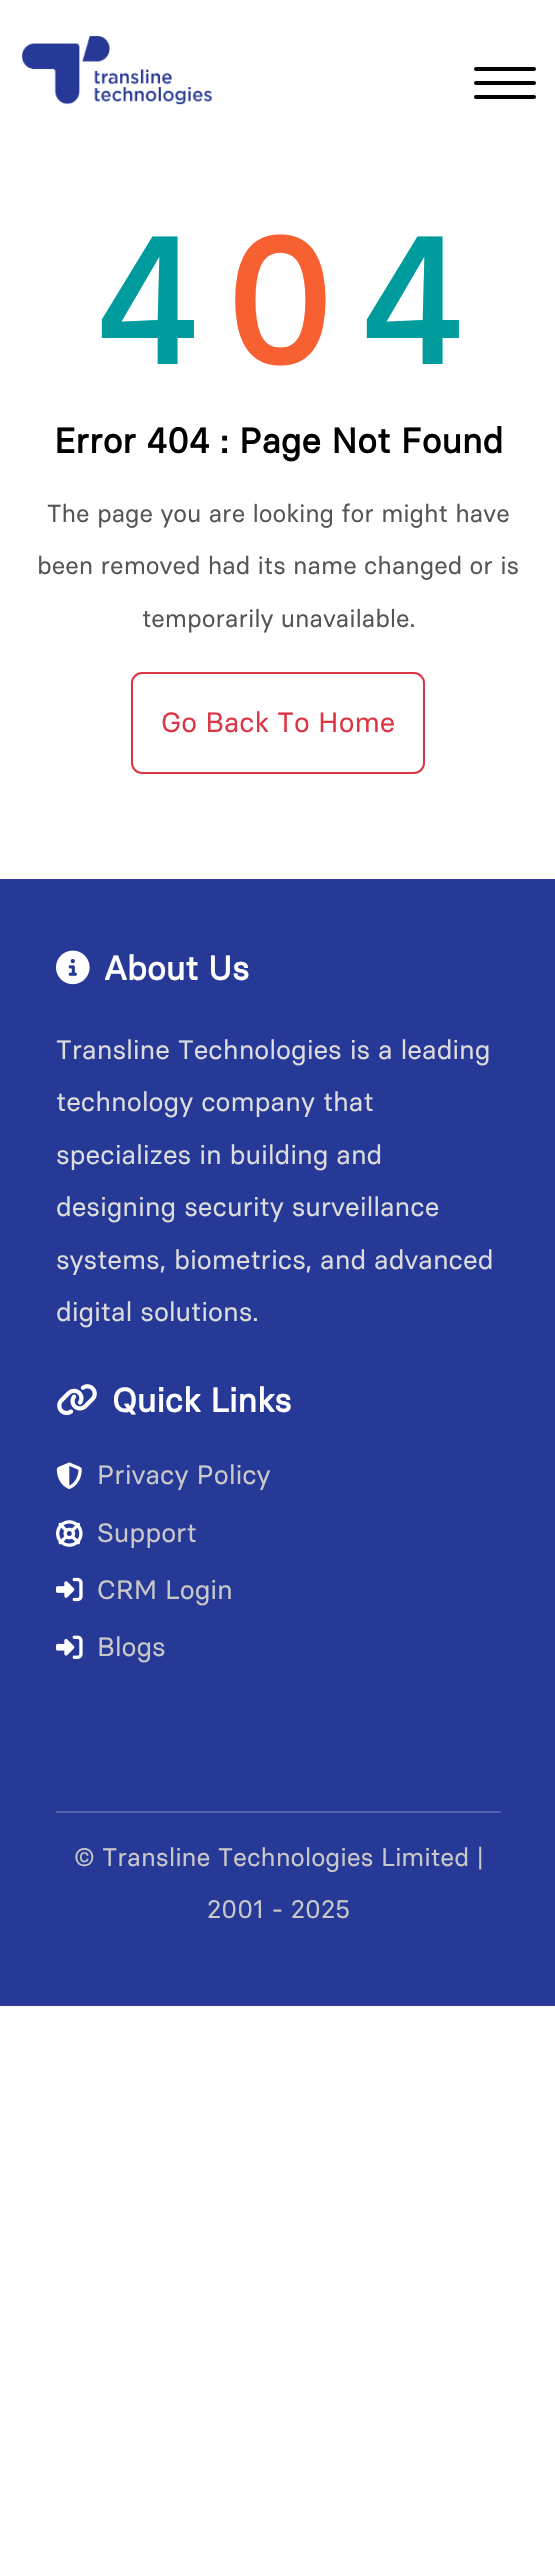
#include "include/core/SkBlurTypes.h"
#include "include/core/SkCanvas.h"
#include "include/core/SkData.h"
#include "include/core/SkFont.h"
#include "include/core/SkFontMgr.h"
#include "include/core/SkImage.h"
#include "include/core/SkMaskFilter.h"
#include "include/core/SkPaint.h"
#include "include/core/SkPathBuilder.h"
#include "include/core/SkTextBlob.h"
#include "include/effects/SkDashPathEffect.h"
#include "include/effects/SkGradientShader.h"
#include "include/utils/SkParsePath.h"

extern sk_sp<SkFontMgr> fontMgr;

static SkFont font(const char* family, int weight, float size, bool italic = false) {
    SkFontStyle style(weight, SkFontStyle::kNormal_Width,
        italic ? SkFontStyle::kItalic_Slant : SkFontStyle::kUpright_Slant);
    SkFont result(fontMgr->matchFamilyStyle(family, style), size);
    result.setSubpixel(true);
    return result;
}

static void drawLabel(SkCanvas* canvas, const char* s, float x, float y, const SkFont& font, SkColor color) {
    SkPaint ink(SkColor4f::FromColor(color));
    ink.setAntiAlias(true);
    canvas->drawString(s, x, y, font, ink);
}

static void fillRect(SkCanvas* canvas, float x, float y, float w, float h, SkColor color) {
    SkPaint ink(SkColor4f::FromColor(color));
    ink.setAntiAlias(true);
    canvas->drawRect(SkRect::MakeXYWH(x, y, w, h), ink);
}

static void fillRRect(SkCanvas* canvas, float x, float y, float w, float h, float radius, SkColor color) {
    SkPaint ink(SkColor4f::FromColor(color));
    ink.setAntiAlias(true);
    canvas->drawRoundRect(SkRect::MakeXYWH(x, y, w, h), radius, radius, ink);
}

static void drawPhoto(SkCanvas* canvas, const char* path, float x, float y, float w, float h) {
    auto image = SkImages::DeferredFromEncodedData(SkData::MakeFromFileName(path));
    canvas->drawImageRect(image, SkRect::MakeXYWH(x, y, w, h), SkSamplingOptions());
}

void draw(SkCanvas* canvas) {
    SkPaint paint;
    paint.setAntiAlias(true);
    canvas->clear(0xFFFFFFFF);
    drawPhoto(canvas, "assets/img1.png", 22, 36, 190, 69);
    fillRRect(canvas, 474, 67, 62, 4, 2, 0xFF000000);
    fillRRect(canvas, 474, 81, 62, 4, 2, 0xFF000000);
    fillRRect(canvas, 474, 95, 62, 4, 2, 0xFF000000);
    SkFont font1 = font("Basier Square", 700, 175);
    drawLabel(canvas, "4", 94, 364, font1, 0xFF009C9D);
    drawLabel(canvas, "0", 223, 364, font1, 0xFFF76031);
    drawLabel(canvas, "4", 359, 364, font1, 0xFF009C9D);
    SkFont font2 = font("Basier Square", 700, 35);
    drawLabel(canvas, "Error 404 : Page Not Found", 54, 453, font2, 0xFF000000);
    SkFont font3 = font("Basier Square", 400, 24.5f);
    drawLabel(canvas, "The page you are looking for might have", 47, 522, font3, 0xFF555555);
    drawLabel(canvas, "been removed had its name changed or is", 37, 574, font3, 0xFF555555);
    drawLabel(canvas, "temporarily unavailable.", 142, 627, font3, 0xFF555555);
    paint.setStroke(true);
    paint.setStrokeWidth(2);
    paint.setColor(0xFFDC3545);
    canvas->drawRoundRect(SkRect::MakeXYWH(132, 673, 292, 100), 10, 10, paint);
    SkFont font4 = font("Basier Square", 400, 28);
    drawLabel(canvas, "Go Back To Home", 161, 732, font4, 0xFFDC3545);
    fillRect(canvas, 0, 879, 555, 1127, 0xFF273996);
    drawPhoto(canvas, "assets/img2.png", 56, 950, 34, 35);
    SkFont font5 = font("Basier Square", 700, 33.5f);
    drawLabel(canvas, "About Us", 104, 980, font5, 0xFFFFFFFF);
    SkFont font6 = font("Basier Square", 400, 26.6f);
    drawLabel(canvas, "Transline Technologies is a leading", 56, 1059, font6, 0xFFDDDDDD);
    drawLabel(canvas, "technology company that", 56, 1111, font6, 0xFFDDDDDD);
    drawLabel(canvas, "specializes in building and", 56, 1164, font6, 0xFFDDDDDD);
    drawLabel(canvas, "designing security surveillance", 56, 1216, font6, 0xFFDDDDDD);
    drawLabel(canvas, "systems, biometrics, and advanced", 56, 1269, font6, 0xFFDDDDDD);
    drawLabel(canvas, "digital solutions.", 56, 1321, font6, 0xFFDDDDDD);
    drawPhoto(canvas, "assets/img3.png", 57, 1384, 40, 32);
    drawLabel(canvas, "Quick Links", 112, 1412, font5, 0xFFFFFFFF);
    drawPhoto(canvas, "assets/img4.png", 56, 1462, 26, 27);
    drawLabel(canvas, "Privacy Policy", 97, 1484, font6, 0xFFC9C9C9);
    drawPhoto(canvas, "assets/img5.png", 56, 1520, 27, 27);
    drawLabel(canvas, "Support", 97, 1542, font6, 0xFFC9C9C9);
    drawPhoto(canvas, "assets/img6.png", 56, 1577, 27, 25);
    drawLabel(canvas, "CRM Login", 97, 1599, font6, 0xFFC9C9C9);
    drawPhoto(canvas, "assets/img7.png", 56, 1635, 27, 24);
    drawLabel(canvas, "Blogs", 97, 1656, font6, 0xFFC9C9C9);
    fillRect(canvas, 56, 1811, 445, 2, 0xFF5261AB);
    SkFont font7 = font("Basier Square", 400, 25.25f);
    drawLabel(canvas, "© Transline Technologies Limited |", 74, 1866, font7, 0xFFC9C9C9);
    drawLabel(canvas, "2001 - 2025", 207, 1918, font7, 0xFFC9C9C9);
}
